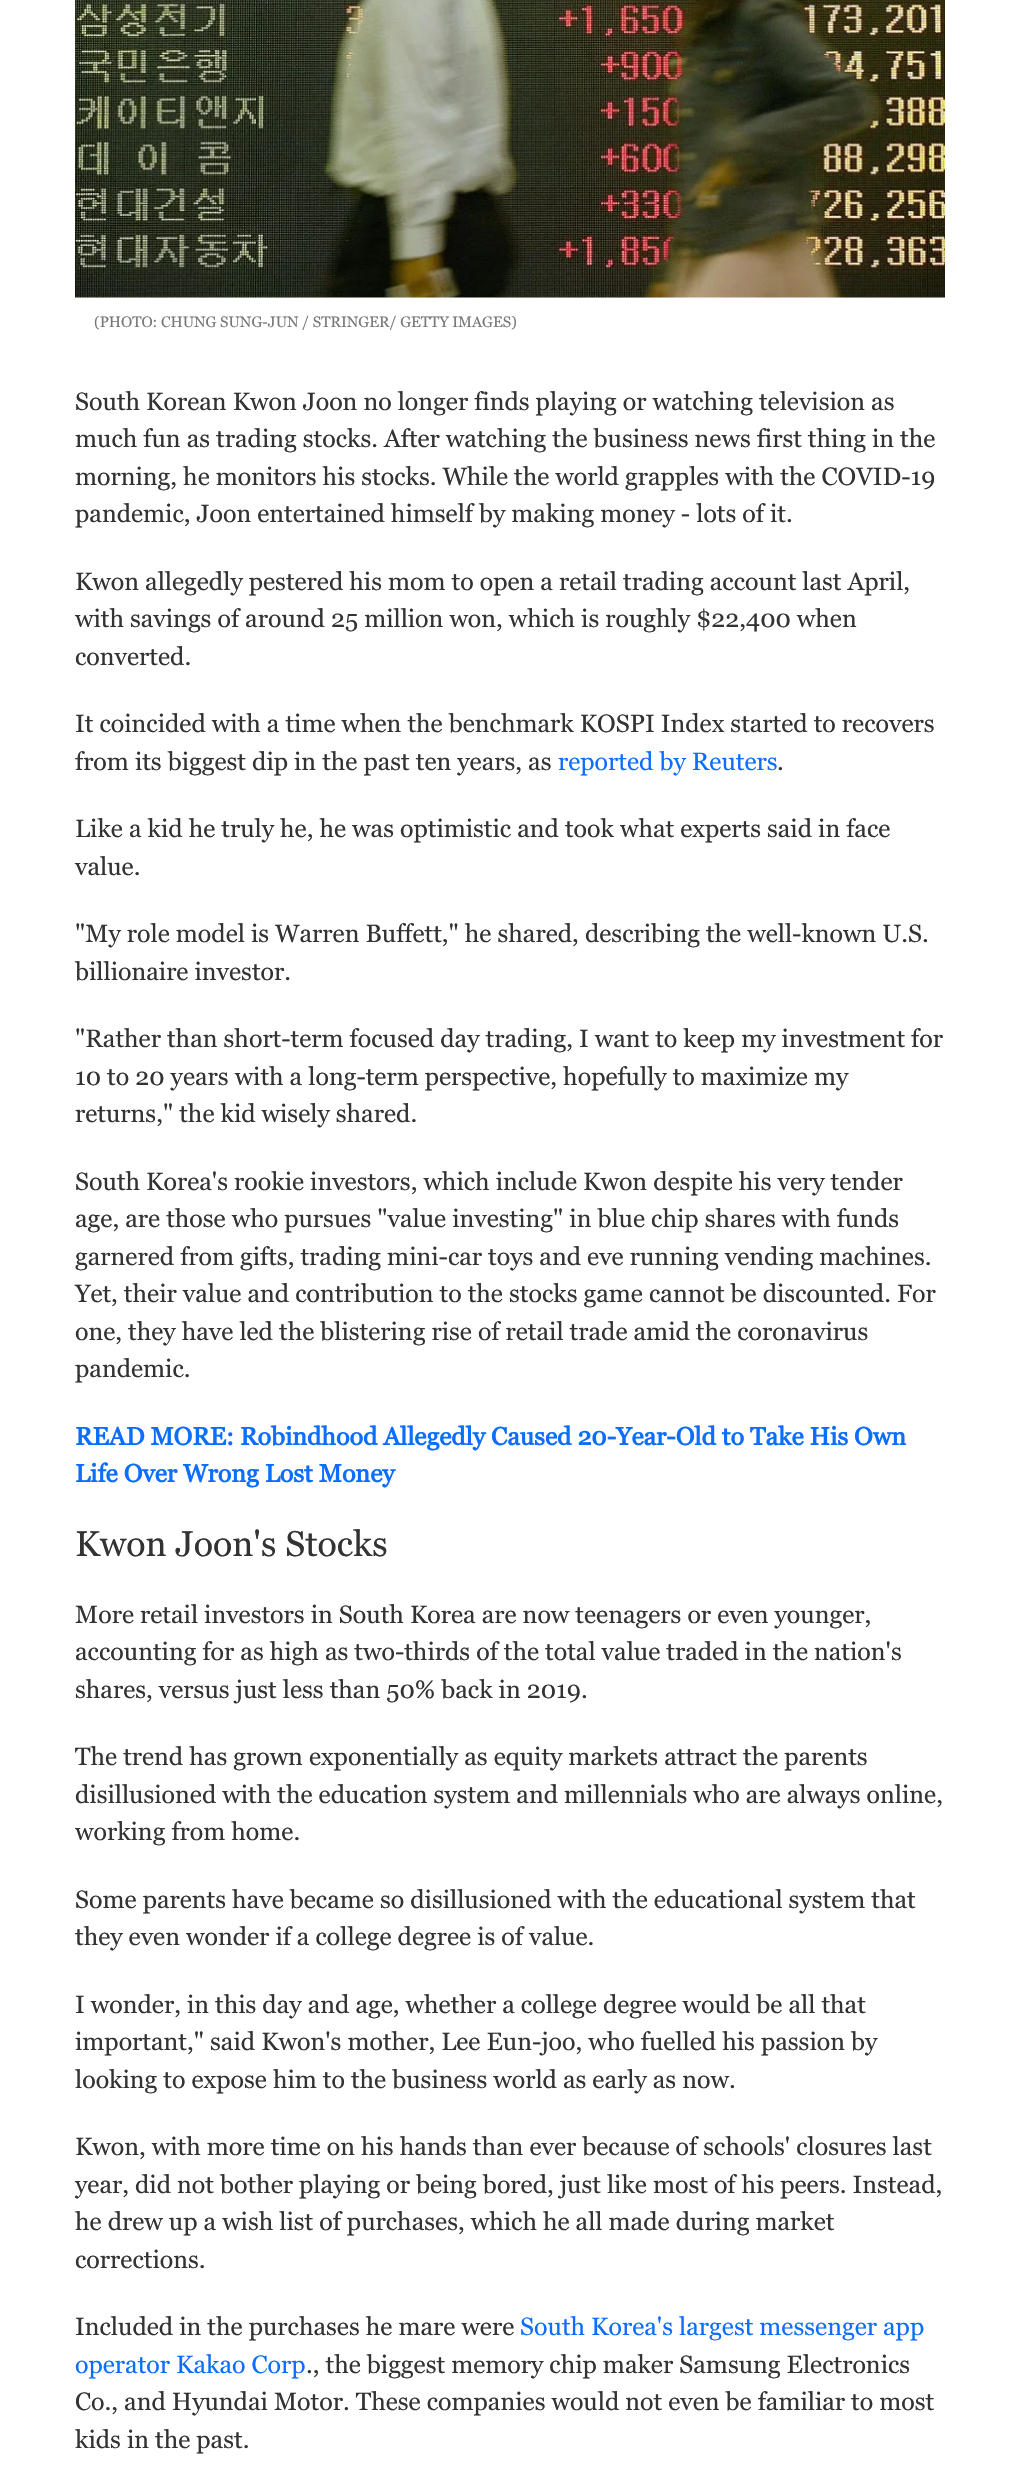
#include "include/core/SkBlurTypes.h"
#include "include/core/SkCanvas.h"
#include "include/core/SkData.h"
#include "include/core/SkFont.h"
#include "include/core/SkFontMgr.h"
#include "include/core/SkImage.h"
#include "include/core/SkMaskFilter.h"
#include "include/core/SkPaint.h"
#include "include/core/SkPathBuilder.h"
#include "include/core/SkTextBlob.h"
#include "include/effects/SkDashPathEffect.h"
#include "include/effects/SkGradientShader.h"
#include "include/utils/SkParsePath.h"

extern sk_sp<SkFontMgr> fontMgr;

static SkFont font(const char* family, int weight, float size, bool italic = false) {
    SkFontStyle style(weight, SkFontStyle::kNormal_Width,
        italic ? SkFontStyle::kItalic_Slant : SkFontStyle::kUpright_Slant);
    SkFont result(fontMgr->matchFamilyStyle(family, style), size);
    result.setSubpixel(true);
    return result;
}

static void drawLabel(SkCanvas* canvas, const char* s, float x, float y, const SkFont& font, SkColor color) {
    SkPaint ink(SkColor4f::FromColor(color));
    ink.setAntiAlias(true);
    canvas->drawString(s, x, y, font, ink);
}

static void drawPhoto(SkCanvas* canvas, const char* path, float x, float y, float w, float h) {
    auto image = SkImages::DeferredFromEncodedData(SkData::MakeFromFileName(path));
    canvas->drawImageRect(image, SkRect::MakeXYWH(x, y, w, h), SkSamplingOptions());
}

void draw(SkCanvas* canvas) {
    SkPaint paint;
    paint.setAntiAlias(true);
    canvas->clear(0xFFFFFFFF);
    drawPhoto(canvas, "assets/img1.png", 75, 0, 870, 298);
    SkFont font1 = font("Georgia", 400, 15);
    drawLabel(canvas, "(PHOTO: CHUNG SUNG-JUN / STRINGER/ GETTY IMAGES)", 94, 327, font1, 0xFF777777);
    SkFont font2 = font("Georgia", 400, 25);
    drawLabel(canvas, "South Korean Kwon Joon no longer finds playing or watching television as", 75, 410, font2, 0xFF333333);
    drawLabel(canvas, "much fun as trading stocks. After watching the business news first thing in the", 75, 447, font2, 0xFF333333);
    drawLabel(canvas, "morning, he monitors his stocks. While the world grapples with the COVID-19", 75, 485, font2, 0xFF333333);
    drawLabel(canvas, "pandemic, Joon entertained himself by making money - lots of it.", 75, 522, font2, 0xFF333333);
    drawLabel(canvas, "Kwon allegedly pestered his mom to open a retail trading account last April,", 75, 590, font2, 0xFF333333);
    drawLabel(canvas, "with savings of around 25 million won, which is roughly $22,400 when", 75, 627, font2, 0xFF333333);
    drawLabel(canvas, "converted.", 75, 665, font2, 0xFF333333);
    drawLabel(canvas, "It coincided with a time when the benchmark KOSPI Index started to recovers", 75, 732, font2, 0xFF333333);
    drawLabel(canvas, "from its biggest dip in the past ten years, as", 75, 770, font2, 0xFF333333);
    drawLabel(canvas, "reported by Reuters", 558, 770, font2, 0xFF0D6EFD);
    drawLabel(canvas, ".", 777, 770, font2, 0xFF333333);
    drawLabel(canvas, "Like a kid he truly he, he was optimistic and took what experts said in face", 75, 837, font2, 0xFF333333);
    drawLabel(canvas, "value.", 75, 875, font2, 0xFF333333);
    drawLabel(canvas, "\"My role model is Warren Buffett,\" he shared, describing the well-known U.S.", 75, 942, font2, 0xFF333333);
    drawLabel(canvas, "billionaire investor.", 75, 980, font2, 0xFF333333);
    drawLabel(canvas, "\"Rather than short-term focused day trading, I want to keep my investment for", 75, 1047, font2, 0xFF333333);
    drawLabel(canvas, "10 to 20 years with a long-term perspective, hopefully to maximize my", 75, 1085, font2, 0xFF333333);
    drawLabel(canvas, "returns,\" the kid wisely shared.", 75, 1122, font2, 0xFF333333);
    drawLabel(canvas, "South Korea's rookie investors, which include Kwon despite his very tender", 75, 1190, font2, 0xFF333333);
    drawLabel(canvas, "age, are those who pursues \"value investing\" in blue chip shares with funds", 75, 1227, font2, 0xFF333333);
    drawLabel(canvas, "garnered from gifts, trading mini-car toys and eve running vending machines.", 75, 1265, font2, 0xFF333333);
    drawLabel(canvas, "Yet, their value and contribution to the stocks game cannot be discounted. For", 75, 1302, font2, 0xFF333333);
    drawLabel(canvas, "one, they have led the blistering rise of retail trade amid the coronavirus", 75, 1340, font2, 0xFF333333);
    drawLabel(canvas, "pandemic.", 75, 1377, font2, 0xFF333333);
    SkFont font3 = font("Georgia", 700, 25);
    drawLabel(canvas, "READ MORE: Robindhood Allegedly Caused 20-Year-Old to Take His Own", 75, 1445, font3, 0xFF0D6EFD);
    drawLabel(canvas, "Life Over Wrong Lost Money", 75, 1482, font3, 0xFF0D6EFD);
    SkFont font4 = font("Georgia", 400, 35.75f);
    drawLabel(canvas, "Kwon Joon's Stocks", 75, 1556, font4, 0xFF333333);
    drawLabel(canvas, "More retail investors in South Korea are now teenagers or even younger,", 75, 1623, font2, 0xFF333333);
    drawLabel(canvas, "accounting for as high as two-thirds of the total value traded in the nation's", 75, 1660, font2, 0xFF333333);
    drawLabel(canvas, "shares, versus just less than 50% back in 2019.", 75, 1698, font2, 0xFF333333);
    drawLabel(canvas, "The trend has grown exponentially as equity markets attract the parents", 75, 1765, font2, 0xFF333333);
    drawLabel(canvas, "disillusioned with the education system and millennials who are always online,", 75, 1803, font2, 0xFF333333);
    drawLabel(canvas, "working from home.", 75, 1840, font2, 0xFF333333);
    drawLabel(canvas, "Some parents have became so disillusioned with the educational system that", 75, 1908, font2, 0xFF333333);
    drawLabel(canvas, "they even wonder if a college degree is of value.", 75, 1945, font2, 0xFF333333);
    drawLabel(canvas, "I wonder, in this day and age, whether a college degree would be all that", 75, 2013, font2, 0xFF333333);
    drawLabel(canvas, "important,\" said Kwon's mother, Lee Eun-joo, who fuelled his passion by", 75, 2050, font2, 0xFF333333);
    drawLabel(canvas, "looking to expose him to the business world as early as now.", 75, 2088, font2, 0xFF333333);
    drawLabel(canvas, "Kwon, with more time on his hands than ever because of schools' closures last", 75, 2155, font2, 0xFF333333);
    drawLabel(canvas, "year, did not bother playing or being bored, just like most of his peers. Instead,", 75, 2193, font2, 0xFF333333);
    drawLabel(canvas, "he drew up a wish list of purchases, which he all made during market", 75, 2230, font2, 0xFF333333);
    drawLabel(canvas, "corrections.", 75, 2268, font2, 0xFF333333);
    drawLabel(canvas, "Included in the purchases he mare were", 75, 2335, font2, 0xFF333333);
    drawLabel(canvas, "South Korea's largest messenger app", 520, 2335, font2, 0xFF0D6EFD);
    drawLabel(canvas, "operator Kakao Corp", 75, 2373, font2, 0xFF0D6EFD);
    drawLabel(canvas, "., the biggest memory chip maker Samsung Electronics", 306, 2373, font2, 0xFF333333);
    drawLabel(canvas, "Co., and Hyundai Motor. These companies would not even be familiar to most", 75, 2410, font2, 0xFF333333);
    drawLabel(canvas, "kids in the past.", 75, 2448, font2, 0xFF333333);
}
